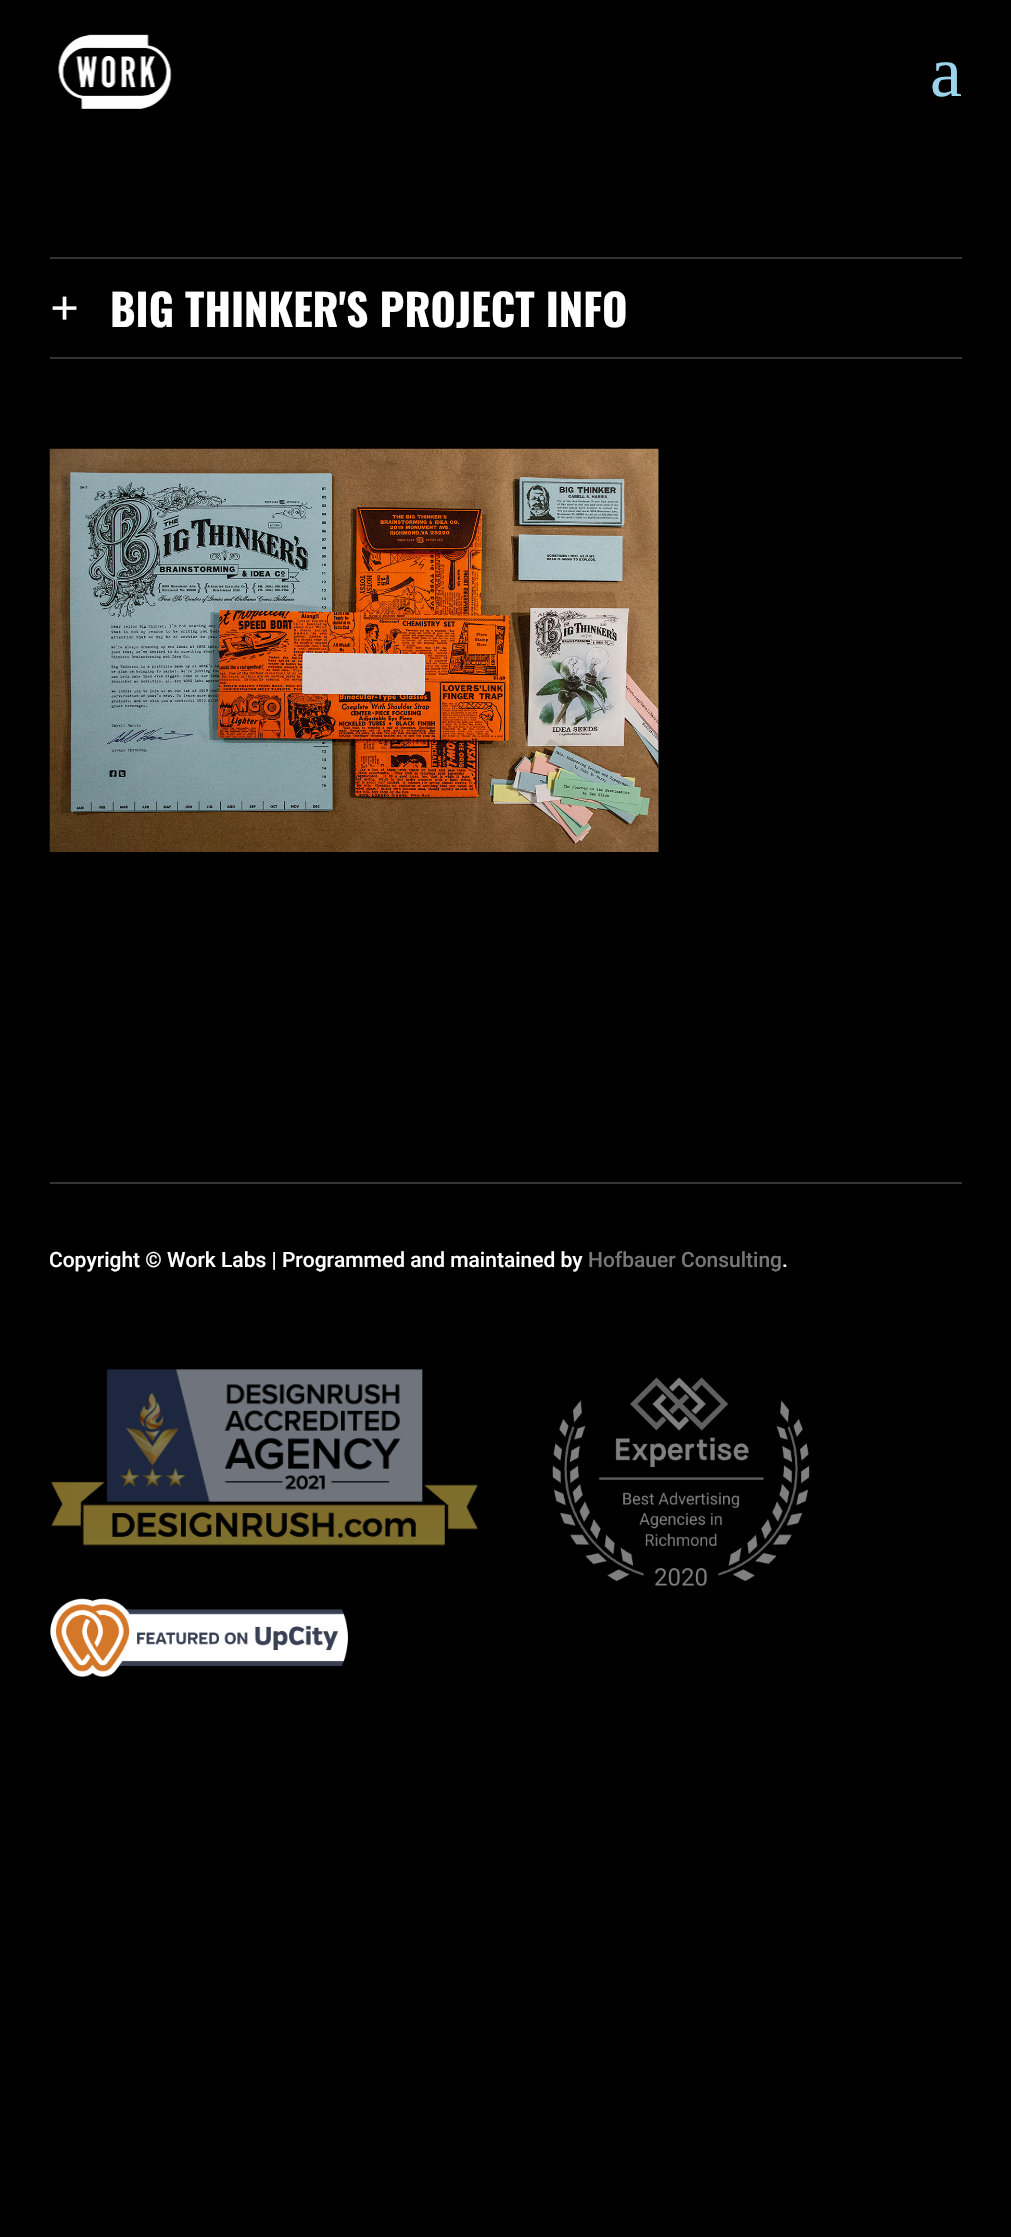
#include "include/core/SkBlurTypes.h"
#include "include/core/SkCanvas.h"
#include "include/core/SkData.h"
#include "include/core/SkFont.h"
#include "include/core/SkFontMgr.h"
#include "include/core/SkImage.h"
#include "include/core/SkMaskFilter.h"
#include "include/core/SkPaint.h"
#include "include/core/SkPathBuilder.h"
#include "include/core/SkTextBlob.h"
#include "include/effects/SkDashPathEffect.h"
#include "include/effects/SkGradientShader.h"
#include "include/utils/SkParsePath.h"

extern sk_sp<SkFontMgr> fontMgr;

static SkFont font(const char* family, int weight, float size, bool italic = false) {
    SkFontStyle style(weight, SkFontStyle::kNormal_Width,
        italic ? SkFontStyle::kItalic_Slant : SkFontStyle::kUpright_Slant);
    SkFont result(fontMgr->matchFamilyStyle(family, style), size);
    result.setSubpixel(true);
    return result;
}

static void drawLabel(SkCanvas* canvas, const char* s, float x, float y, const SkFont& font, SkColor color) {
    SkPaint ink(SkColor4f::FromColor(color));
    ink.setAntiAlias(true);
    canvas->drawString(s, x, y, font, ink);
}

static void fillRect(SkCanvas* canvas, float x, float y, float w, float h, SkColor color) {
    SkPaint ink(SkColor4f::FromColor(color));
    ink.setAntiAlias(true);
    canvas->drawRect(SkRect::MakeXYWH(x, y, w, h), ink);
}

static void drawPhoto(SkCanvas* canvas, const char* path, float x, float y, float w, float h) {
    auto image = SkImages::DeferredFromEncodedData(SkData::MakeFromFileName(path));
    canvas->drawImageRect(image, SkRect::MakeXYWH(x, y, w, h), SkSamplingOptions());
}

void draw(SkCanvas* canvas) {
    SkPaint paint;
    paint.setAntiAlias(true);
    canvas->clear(0xFF000000);
    drawPhoto(canvas, "assets/img1.png", 58, 34, 114, 75);
    SkFont font1 = font("Liberation Serif", 400, 72);
    drawLabel(canvas, "a", 930, 96, font1, 0xFF9CD5EB);
    fillRect(canvas, 50, 257, 912, 2, 0xFF333333);
    fillRect(canvas, 50, 357, 912, 2, 0xFF333333);
    SkFont font2 = font("Montserrat", 400, 54);
    drawLabel(canvas, "+", 49, 327, font2, 0xFFFFFFFF);
    SkFont font3 = font("Oswald", 700, 43.5f);
    drawLabel(canvas, "BIG THINKER'S PROJECT INFO", 110, 327, font3, 0xFFFFFFFF);
    fillRect(canvas, 658, 449, 1, 403, 0xFF292728);
    drawPhoto(canvas, "assets/img2.png", 49, 448, 610, 404);
    fillRect(canvas, 50, 1182, 912, 2, 0xFF333333);
    SkFont font4 = font("Roboto", 500, 21);
    drawLabel(canvas, "Copyright © Work Labs | Programmed and maintained by", 49, 1267, font4, 0xFFFFFFFF);
    drawLabel(canvas, "Hofbauer Consulting", 588, 1267, font4, 0xFF777777);
    drawLabel(canvas, ".", 782, 1267, font4, 0xFFFFFFFF);
    drawPhoto(canvas, "assets/img3.png", 51, 1369, 427, 177);
    drawPhoto(canvas, "assets/img4.png", 50, 1598, 298, 79);
    drawPhoto(canvas, "assets/img5.png", 552, 1377, 258, 210);
}
